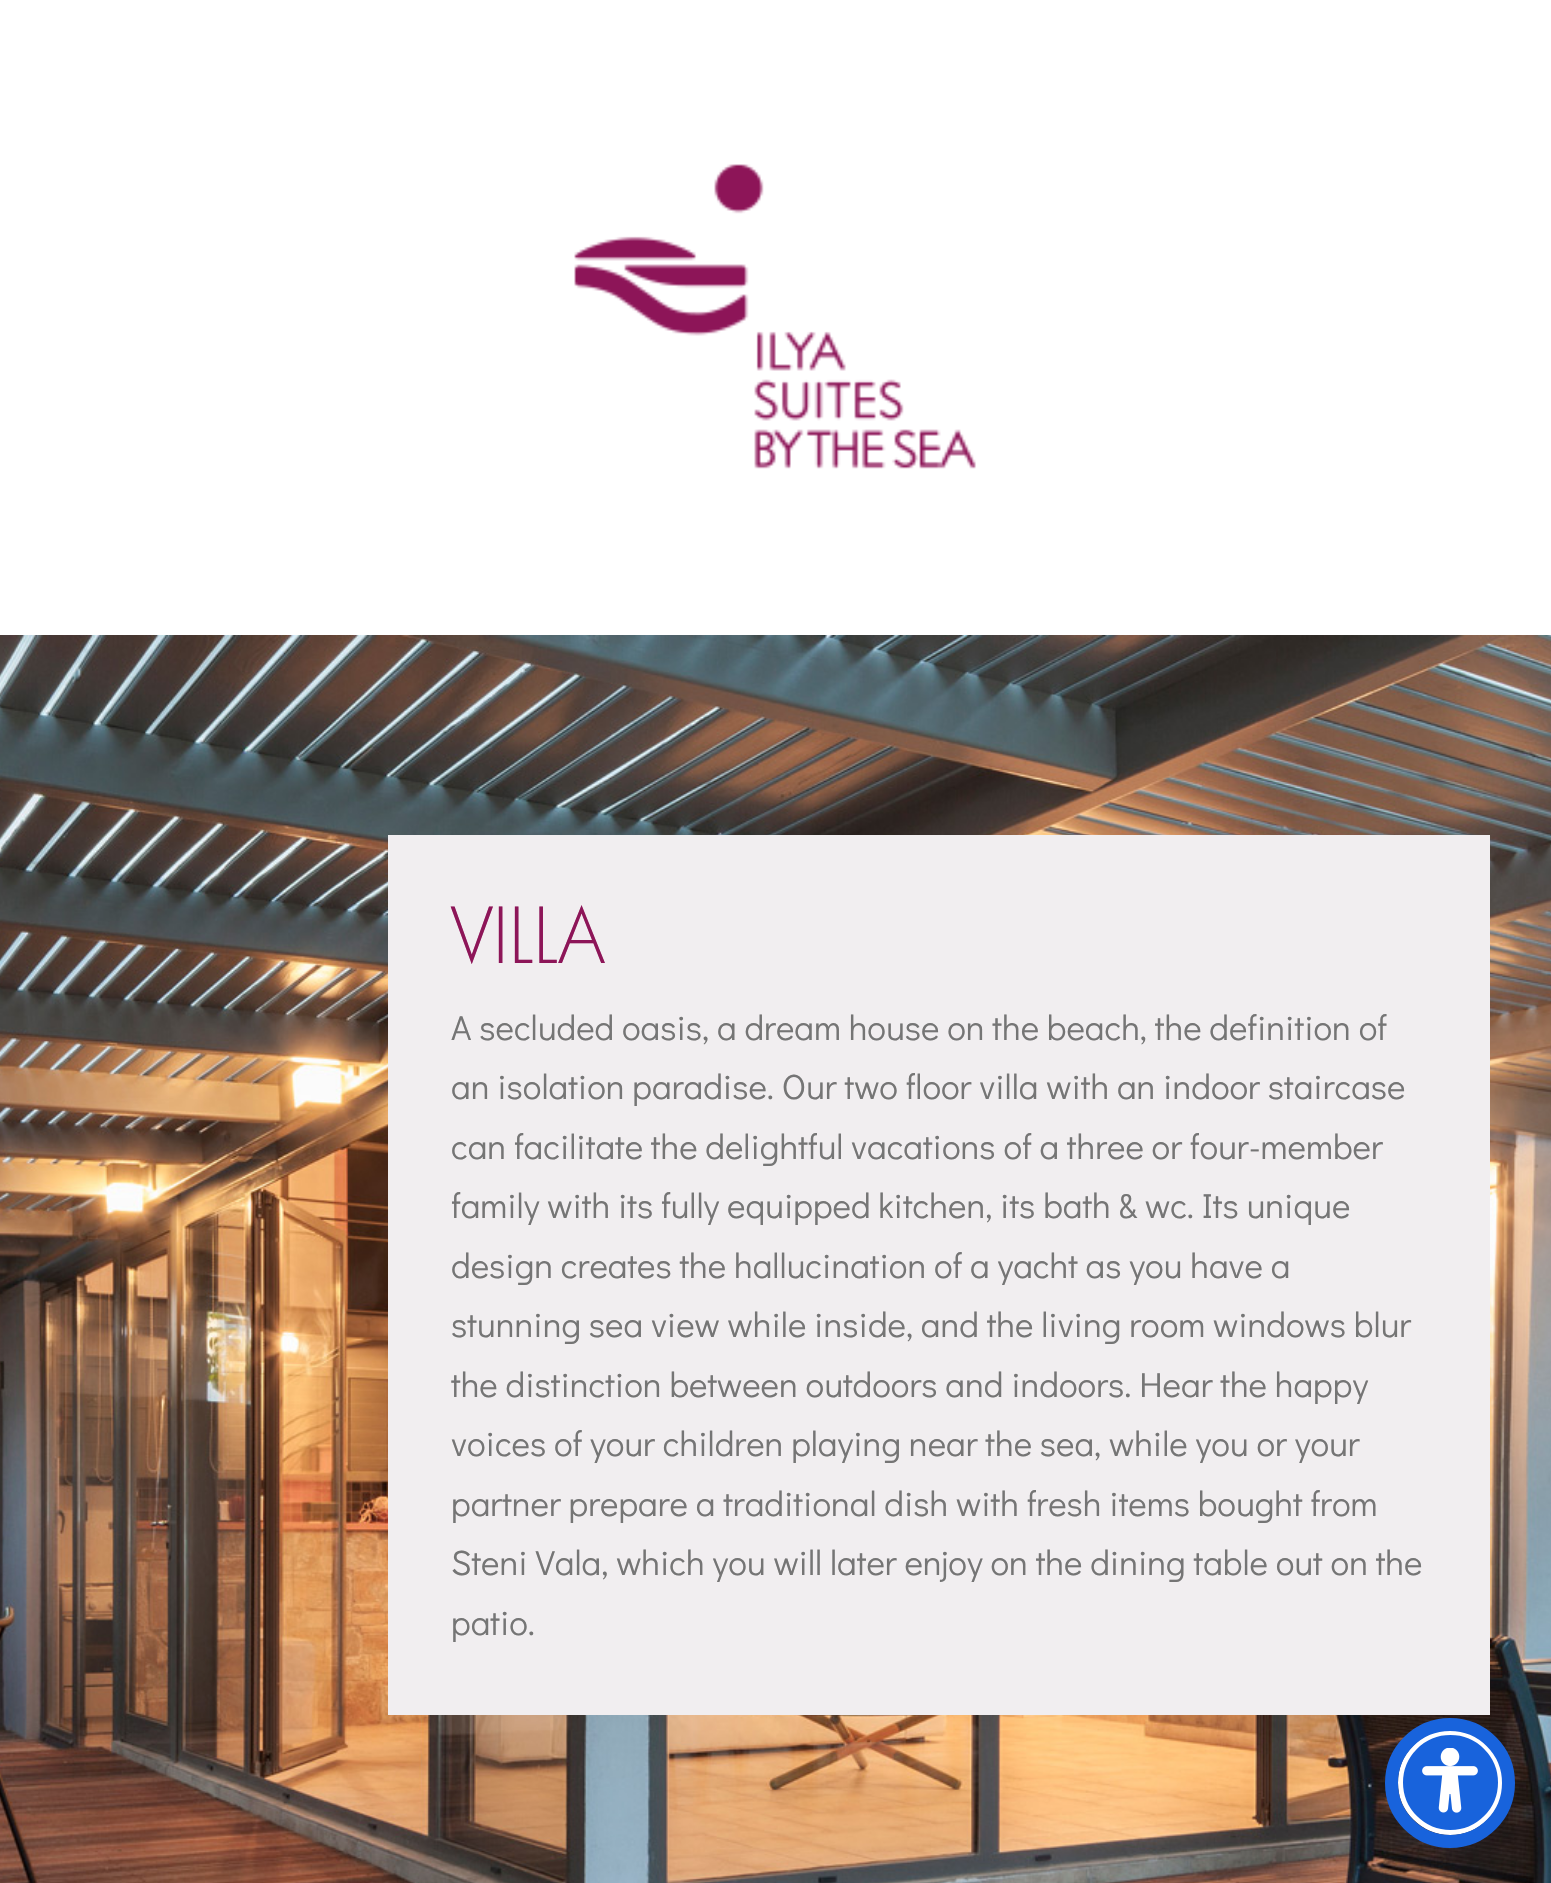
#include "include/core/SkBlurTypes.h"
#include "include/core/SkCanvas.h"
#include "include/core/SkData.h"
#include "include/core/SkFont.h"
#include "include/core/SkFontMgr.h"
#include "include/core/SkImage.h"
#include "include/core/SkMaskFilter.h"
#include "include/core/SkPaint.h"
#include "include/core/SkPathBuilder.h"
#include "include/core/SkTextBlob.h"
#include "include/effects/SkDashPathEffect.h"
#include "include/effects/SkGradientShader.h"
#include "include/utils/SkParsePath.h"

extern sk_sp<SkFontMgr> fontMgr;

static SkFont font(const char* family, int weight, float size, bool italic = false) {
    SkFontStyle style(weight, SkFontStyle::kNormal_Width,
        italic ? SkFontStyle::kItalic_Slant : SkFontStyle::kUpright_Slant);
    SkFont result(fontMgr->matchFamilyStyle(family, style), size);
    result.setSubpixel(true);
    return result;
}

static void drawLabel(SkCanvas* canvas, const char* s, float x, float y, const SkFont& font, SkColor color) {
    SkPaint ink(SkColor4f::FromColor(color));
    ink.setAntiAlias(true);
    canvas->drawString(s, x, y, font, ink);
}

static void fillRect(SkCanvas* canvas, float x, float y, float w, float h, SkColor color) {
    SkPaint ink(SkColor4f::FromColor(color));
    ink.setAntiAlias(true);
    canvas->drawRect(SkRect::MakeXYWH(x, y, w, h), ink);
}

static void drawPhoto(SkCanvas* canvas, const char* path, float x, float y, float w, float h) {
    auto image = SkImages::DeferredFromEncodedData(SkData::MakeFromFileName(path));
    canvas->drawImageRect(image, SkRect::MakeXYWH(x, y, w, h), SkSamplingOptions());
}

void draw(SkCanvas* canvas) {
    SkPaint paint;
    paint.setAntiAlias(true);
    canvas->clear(0xFFFFFFFF);
    drawPhoto(canvas, "assets/img1.png", 574, 164, 402, 305);
    drawPhoto(canvas, "assets/img2.png", 0, 635, 1551, 1248);
    fillRect(canvas, 388, 835, 1102, 880, 0xFFF1EEF0);
    SkFont font1 = font("Futura", 300, 75);
    drawLabel(canvas, "VILLA", 451, 963, font1, 0xFF8D1558);
    SkFont font2 = font("Didact Gothic", 400, 35);
    drawLabel(canvas, "A secluded oasis, a dream house on the beach, the definition of", 451, 1040, font2, 0xFF757575);
    drawLabel(canvas, "an isolation paradise. Our two floor villa with an indoor staircase", 451, 1099, font2, 0xFF757575);
    drawLabel(canvas, "can facilitate the delightful vacations of a three or four-member", 451, 1159, font2, 0xFF757575);
    drawLabel(canvas, "family with its fully equipped kitchen, its bath & wc. Its unique", 451, 1218, font2, 0xFF757575);
    drawLabel(canvas, "design creates the hallucination of a yacht as you have a", 451, 1278, font2, 0xFF757575);
    drawLabel(canvas, "stunning sea view while inside, and the living room windows blur", 451, 1337, font2, 0xFF757575);
    drawLabel(canvas, "the distinction between outdoors and indoors. Hear the happy", 451, 1397, font2, 0xFF757575);
    drawLabel(canvas, "voices of your children playing near the sea, while you or your", 451, 1456, font2, 0xFF757575);
    drawLabel(canvas, "partner prepare a traditional dish with fresh items bought from", 451, 1516, font2, 0xFF757575);
    drawLabel(canvas, "Steni Vala, which you will later enjoy on the dining table out on the", 451, 1575, font2, 0xFF757575);
    drawLabel(canvas, "patio.", 451, 1635, font2, 0xFF757575);
    paint.setColor(0x335D6494);
    paint.setMaskFilter(SkMaskFilter::MakeBlur(kNormal_SkBlurStyle, 5));
    canvas->drawRoundRect(SkRect::MakeXYWH(1398, 1735, 105, 105), 52.5f, 52.5f, paint);
    paint.setMaskFilter(nullptr);
    paint.setColor(0x26252C61);
    paint.setMaskFilter(SkMaskFilter::MakeBlur(kNormal_SkBlurStyle, 19));
    canvas->drawRoundRect(SkRect::MakeXYWH(1398, 1743, 105, 105), 52.5f, 52.5f, paint);
    paint.setMaskFilter(nullptr);
    paint.setColor(0xFF1863DC);
    canvas->drawCircle(1450.5f, 1782.5f, 50, paint);
    paint.setStroke(true);
    paint.setStrokeWidth(5);
    paint.setColor(0xFFFFFFFF);
    canvas->drawCircle(1450.5f, 1782.5f, 50, paint);
    paint.setStrokeWidth(13);
    paint.setColor(0xFF1863DC);
    canvas->drawCircle(1450, 1783, 58.5f, paint);
    drawPhoto(canvas, "assets/img3.png", 1422, 1748, 56, 65);
}
